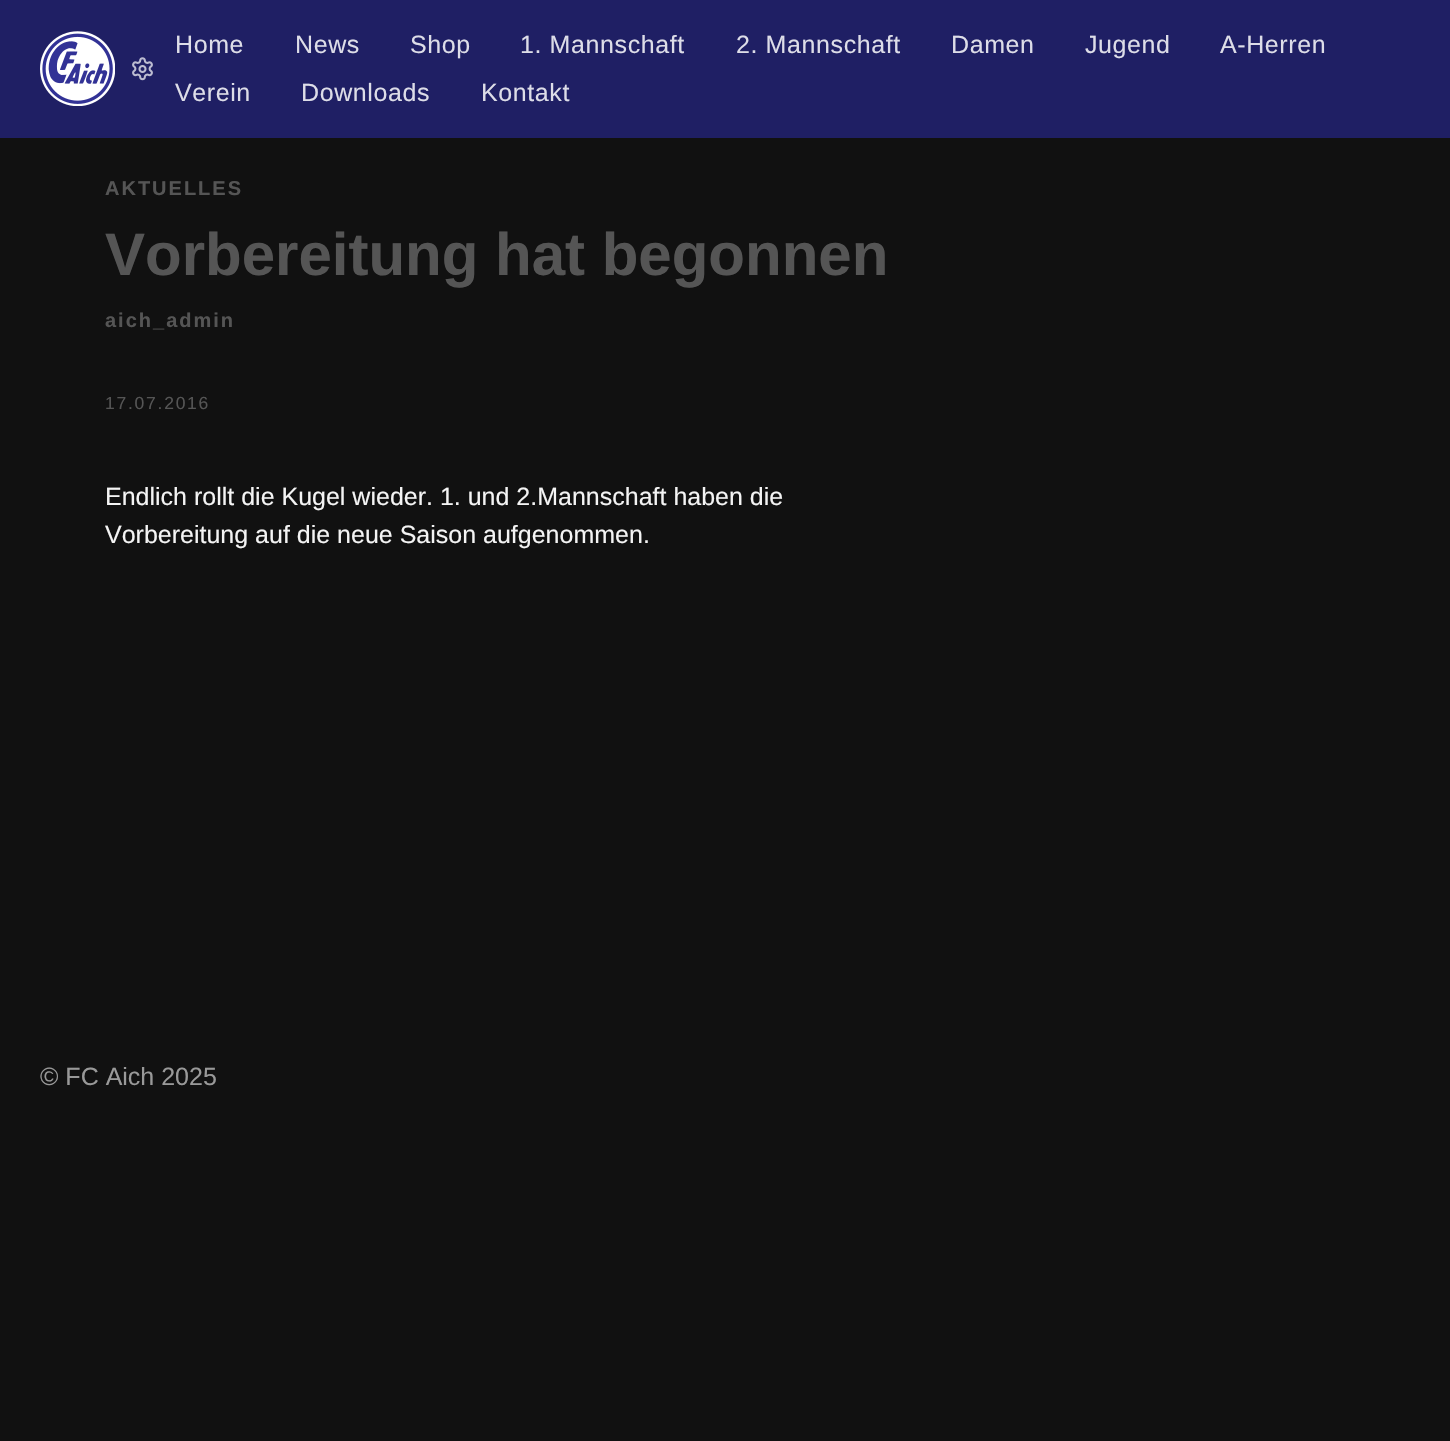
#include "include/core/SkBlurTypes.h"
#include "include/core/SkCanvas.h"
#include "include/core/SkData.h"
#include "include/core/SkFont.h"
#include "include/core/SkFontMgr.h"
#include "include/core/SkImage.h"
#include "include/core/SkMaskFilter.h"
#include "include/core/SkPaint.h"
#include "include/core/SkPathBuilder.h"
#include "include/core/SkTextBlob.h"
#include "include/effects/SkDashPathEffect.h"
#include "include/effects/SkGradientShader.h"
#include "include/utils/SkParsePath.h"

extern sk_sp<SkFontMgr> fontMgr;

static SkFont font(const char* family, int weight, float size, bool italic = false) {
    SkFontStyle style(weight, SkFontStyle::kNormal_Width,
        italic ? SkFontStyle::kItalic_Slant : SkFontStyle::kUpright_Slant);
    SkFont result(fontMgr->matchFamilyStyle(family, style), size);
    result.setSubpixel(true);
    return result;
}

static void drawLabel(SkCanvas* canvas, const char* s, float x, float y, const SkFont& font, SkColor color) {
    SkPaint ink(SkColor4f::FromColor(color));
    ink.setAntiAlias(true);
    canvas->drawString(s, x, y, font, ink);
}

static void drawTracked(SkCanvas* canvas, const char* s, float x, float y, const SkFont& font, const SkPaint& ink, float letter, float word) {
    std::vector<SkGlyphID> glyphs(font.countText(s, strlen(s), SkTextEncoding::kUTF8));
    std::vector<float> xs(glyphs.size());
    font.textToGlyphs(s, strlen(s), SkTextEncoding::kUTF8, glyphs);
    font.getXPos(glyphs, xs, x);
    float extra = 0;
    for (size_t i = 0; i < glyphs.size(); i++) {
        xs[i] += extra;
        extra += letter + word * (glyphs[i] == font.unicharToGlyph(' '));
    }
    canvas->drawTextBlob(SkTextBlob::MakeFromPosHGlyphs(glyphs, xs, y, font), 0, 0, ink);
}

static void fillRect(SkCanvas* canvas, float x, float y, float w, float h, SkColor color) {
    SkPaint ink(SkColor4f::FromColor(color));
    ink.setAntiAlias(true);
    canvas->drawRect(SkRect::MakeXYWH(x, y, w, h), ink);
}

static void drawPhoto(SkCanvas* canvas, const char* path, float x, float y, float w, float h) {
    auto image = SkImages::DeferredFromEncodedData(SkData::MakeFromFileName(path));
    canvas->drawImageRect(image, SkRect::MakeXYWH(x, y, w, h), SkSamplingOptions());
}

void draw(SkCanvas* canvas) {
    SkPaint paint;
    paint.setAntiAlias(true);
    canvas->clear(0xFF111111);
    fillRect(canvas, 0, 0, 1450, 138, 0xFF1F1F64);
    drawPhoto(canvas, "assets/img1.png", 40, 31, 75, 75);
    drawPhoto(canvas, "assets/img2.png", 132, 57, 21, 24);
    SkFont font1 = font("Liberation Sans", 400, 25);
    paint.setColor(0xFFDDDDE8);
    drawTracked(canvas, "Home", 175, 53, font1, paint, 0.6f, 0);
    drawTracked(canvas, "News", 295, 53, font1, paint, 0.6f, 0);
    drawTracked(canvas, "Shop", 410, 53, font1, paint, 0.6f, 0);
    drawTracked(canvas, "1. Mannschaft", 520, 53, font1, paint, 0.6f, 0);
    drawTracked(canvas, "2. Mannschaft", 736, 53, font1, paint, 0.6f, 0);
    drawTracked(canvas, "Damen", 951, 53, font1, paint, 0.6f, 0);
    drawTracked(canvas, "Jugend", 1085, 53, font1, paint, 0.6f, 0);
    drawTracked(canvas, "A-Herren", 1220, 53, font1, paint, 0.6f, 0);
    drawTracked(canvas, "Verein", 175, 101, font1, paint, 0.6f, 0);
    drawTracked(canvas, "Downloads", 301, 101, font1, paint, 0.6f, 0);
    drawTracked(canvas, "Kontakt", 481, 101, font1, paint, 0.6f, 0);
    SkFont font2 = font("Liberation Sans", 700, 20);
    paint.setColor(0xFF555555);
    drawTracked(canvas, "AKTUELLES", 105, 195, font2, paint, 2, 0);
    SkFont font3 = font("Liberation Sans", 700, 60);
    drawLabel(canvas, "Vorbereitung hat begonnen", 105, 275, font3, 0xFF555555);
    drawTracked(canvas, "aich_admin", 105, 327, font2, paint, 2, 0);
    SkFont font4 = font("Liberation Sans", 400, 17.5f);
    drawTracked(canvas, "17.07.2016", 105, 409, font4, paint, 1.75f, 0);
    drawLabel(canvas, "Endlich rollt die Kugel wieder. 1. und 2.Mannschaft haben die", 105, 505, font1, 0xFFF4F4F4);
    drawLabel(canvas, "Vorbereitung auf die neue Saison aufgenommen.", 105, 543, font1, 0xFFF4F4F4);
    drawLabel(canvas, "© FC Aich 2025", 40, 1085, font1, 0xFF999999);
}
